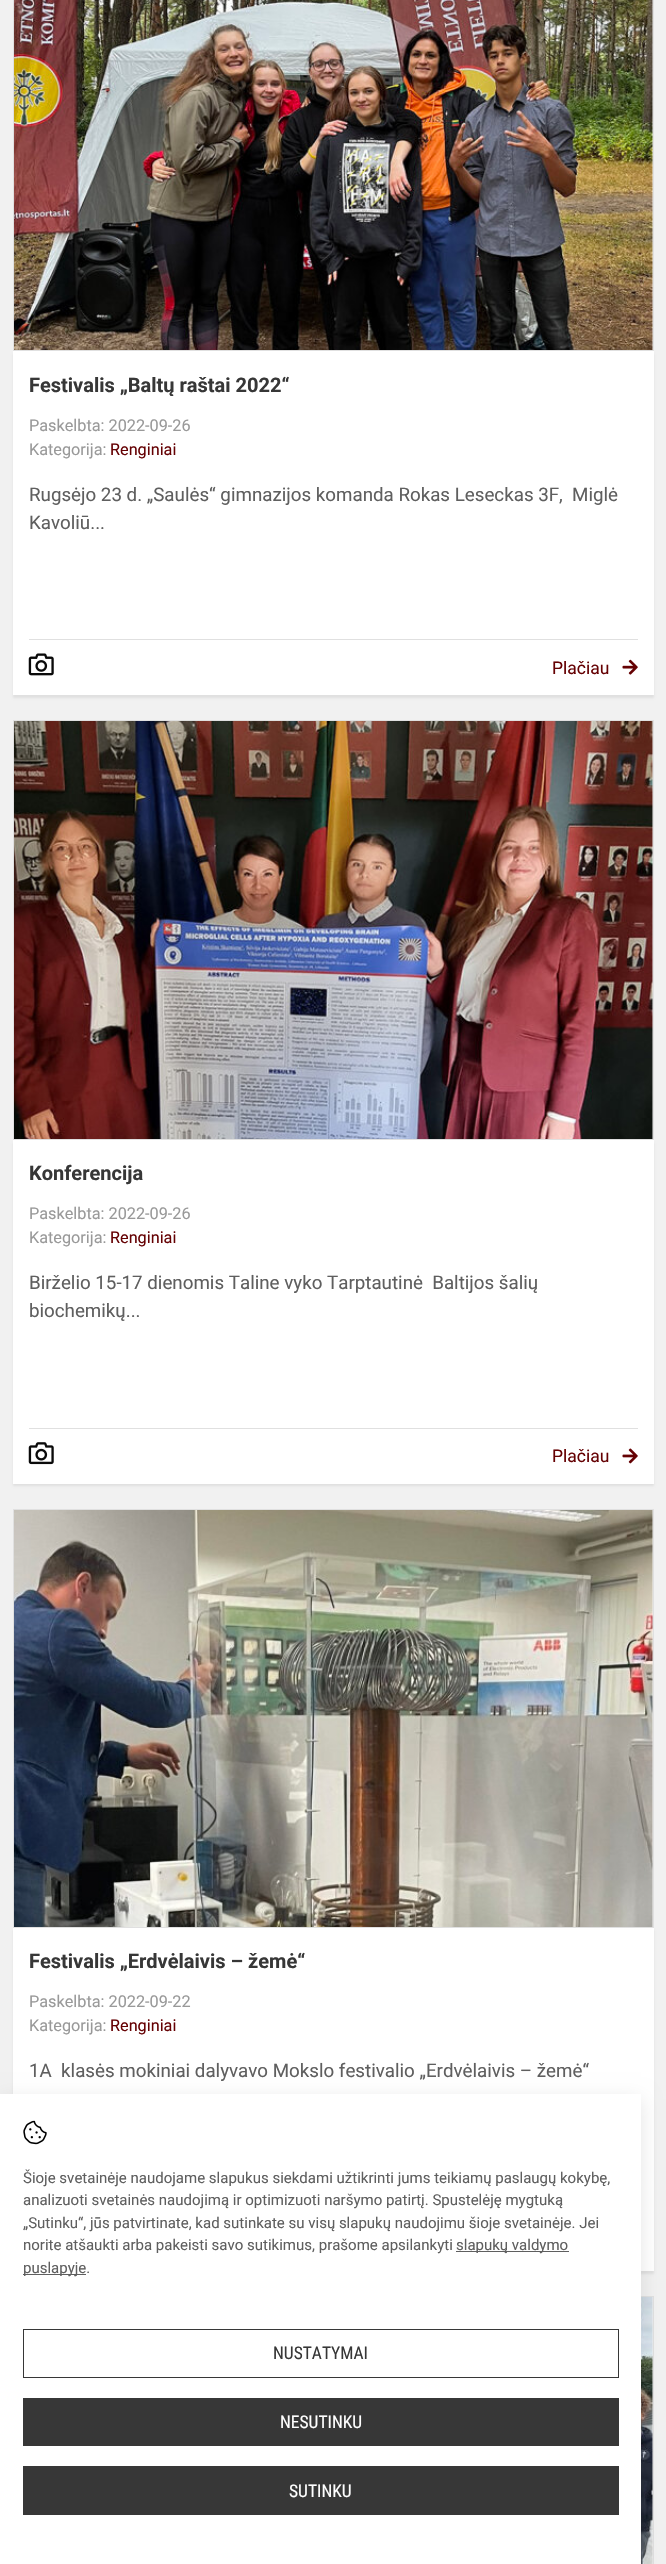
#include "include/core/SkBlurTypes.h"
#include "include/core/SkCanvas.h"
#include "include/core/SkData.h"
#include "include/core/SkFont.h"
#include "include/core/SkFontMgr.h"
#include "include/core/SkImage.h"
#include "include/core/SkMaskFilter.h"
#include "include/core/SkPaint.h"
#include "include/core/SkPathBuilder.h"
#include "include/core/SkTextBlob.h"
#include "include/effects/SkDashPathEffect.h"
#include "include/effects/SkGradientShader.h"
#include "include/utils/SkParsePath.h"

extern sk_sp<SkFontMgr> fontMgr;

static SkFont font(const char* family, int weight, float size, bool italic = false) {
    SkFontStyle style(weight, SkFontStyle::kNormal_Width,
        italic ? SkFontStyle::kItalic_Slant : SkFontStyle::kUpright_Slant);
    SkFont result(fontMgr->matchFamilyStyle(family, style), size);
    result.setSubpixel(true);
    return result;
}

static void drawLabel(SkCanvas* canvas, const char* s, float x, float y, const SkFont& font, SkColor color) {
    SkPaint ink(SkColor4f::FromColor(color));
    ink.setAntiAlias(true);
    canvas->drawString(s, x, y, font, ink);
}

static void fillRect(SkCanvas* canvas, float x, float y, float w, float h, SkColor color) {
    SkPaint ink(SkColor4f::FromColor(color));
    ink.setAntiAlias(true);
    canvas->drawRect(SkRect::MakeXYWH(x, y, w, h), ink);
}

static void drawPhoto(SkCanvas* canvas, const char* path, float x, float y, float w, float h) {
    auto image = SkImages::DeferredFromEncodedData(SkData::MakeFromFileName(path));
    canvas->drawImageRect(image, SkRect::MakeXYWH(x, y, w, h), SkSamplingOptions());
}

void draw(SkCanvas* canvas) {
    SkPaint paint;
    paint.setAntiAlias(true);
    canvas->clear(0xFFF1F1F1);
    drawPhoto(canvas, "assets/img1.png", 14, 0, 639, 350);
    paint.setStroke(true);
    paint.setStrokeWidth(1);
    paint.setColor(0xFFE0E0E0);
    canvas->drawRect(SkRect::MakeXYWH(13.5f, -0.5f, 640, 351), paint);
    paint.setStroke(false);
    paint.setMaskFilter(SkMaskFilter::MakeBlur(kNormal_SkBlurStyle, 1));
    canvas->drawRect(SkRect::MakeXYWH(13, 354, 641, 344), paint);
    paint.setMaskFilter(nullptr);
    fillRect(canvas, 13, 351, 641, 344, 0xFFFFFFFF);
    SkFont font1 = font("Roboto", 700, 20);
    drawLabel(canvas, "Festivalis „Baltų raštai 2022“", 29, 392, font1, 0xFF373737);
    SkFont font2 = font("Roboto", 400, 16.25f);
    drawLabel(canvas, "Paskelbta: 2022-09-26", 29, 431, font2, 0xFF999999);
    drawLabel(canvas, "Kategorija:", 29, 455, font2, 0xFF999999);
    drawLabel(canvas, "Renginiai", 110, 455, font2, 0xFF650103);
    SkFont font3 = font("Roboto", 400, 18.75f);
    drawLabel(canvas, "Rugsėjo 23 d. „Saulės“ gimnazijos komanda Rokas Leseckas 3F,  Miglė", 29, 501, font3, 0xFF5F5F5F);
    drawLabel(canvas, "Kavoliū...", 29, 529, font3, 0xFF5F5F5F);
    fillRect(canvas, 29, 639, 609, 1, 0xFFE0E0E0);
    drawPhoto(canvas, "assets/img2.png", 28, 653, 26, 23);
    SkFont font4 = font("Roboto", 400, 17.5f);
    drawLabel(canvas, "Plačiau", 552, 674, font4, 0xFF650103);
    drawPhoto(canvas, "assets/img3.png", 622, 659, 16, 16);
    drawPhoto(canvas, "assets/img4.png", 14, 721, 639, 418);
    paint.setStroke(true);
    canvas->drawRect(SkRect::MakeXYWH(13.5f, 720.5f, 640, 419), paint);
    paint.setStroke(false);
    paint.setMaskFilter(SkMaskFilter::MakeBlur(kNormal_SkBlurStyle, 1));
    canvas->drawRect(SkRect::MakeXYWH(13, 1143, 641, 343), paint);
    paint.setMaskFilter(nullptr);
    fillRect(canvas, 13, 1140, 641, 344, 0xFFFFFFFF);
    drawLabel(canvas, "Konferencija", 29, 1180, font1, 0xFF373737);
    drawLabel(canvas, "Paskelbta: 2022-09-26", 29, 1219, font2, 0xFF999999);
    drawLabel(canvas, "Kategorija:", 29, 1243, font2, 0xFF999999);
    drawLabel(canvas, "Renginiai", 110, 1243, font2, 0xFF650103);
    drawLabel(canvas, "Birželio 15-17 dienomis Taline vyko Tarptautinė  Baltijos šalių", 29, 1289, font3, 0xFF5F5F5F);
    drawLabel(canvas, "biochemikų...", 29, 1317, font3, 0xFF5F5F5F);
    fillRect(canvas, 29, 1428, 609, 1, 0xFFE0E0E0);
    drawPhoto(canvas, "assets/img5.png", 28, 1442, 26, 23);
    drawLabel(canvas, "Plačiau", 552, 1462, font4, 0xFF650103);
    drawPhoto(canvas, "assets/img6.png", 622, 1448, 16, 16);
    drawPhoto(canvas, "assets/img7.png", 14, 1510, 639, 417);
    paint.setStroke(true);
    canvas->drawRect(SkRect::MakeXYWH(13.5f, 1509.5f, 640, 418), paint);
    paint.setStroke(false);
    paint.setMaskFilter(SkMaskFilter::MakeBlur(kNormal_SkBlurStyle, 1));
    canvas->drawRect(SkRect::MakeXYWH(13, 1930, 641, 344), paint);
    paint.setMaskFilter(nullptr);
    fillRect(canvas, 13, 1928, 641, 343, 0xFFFFFFFF);
    drawLabel(canvas, "Festivalis „Erdvėlaivis – žemė“", 29, 1968, font1, 0xFF373737);
    drawLabel(canvas, "Paskelbta: 2022-09-22", 29, 2007, font2, 0xFF999999);
    drawLabel(canvas, "Kategorija:", 29, 2031, font2, 0xFF999999);
    drawLabel(canvas, "Renginiai", 110, 2031, font2, 0xFF650103);
    drawLabel(canvas, "1A  klasės mokiniai dalyvavo Mokslo festivalio „Erdvėlaivis – žemė“", 29, 2077, font3, 0xFF5F5F5F);
    drawPhoto(canvas, "assets/img8.png", 641, 2297, 12, 267);
    paint.setStroke(true);
    canvas->drawRect(SkRect::MakeXYWH(13.5f, 2296.5f, 640, 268), paint);
    paint.setStroke(false);
    paint.setColor(0x1A000000);
    paint.setMaskFilter(SkMaskFilter::MakeBlur(kNormal_SkBlurStyle, 9));
    canvas->drawRect(SkRect::MakeXYWH(0, 2099, 641, 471), paint);
    paint.setMaskFilter(nullptr);
    fillRect(canvas, 0, 2094, 641, 470, 0xFFFFFFFF);
    drawPhoto(canvas, "assets/img9.png", 23, 2120, 24, 25);
    SkFont font5 = font("Roboto", 400, 15);
    drawLabel(canvas, "Šioje svetainėje naudojame slapukus siekdami užtikrinti jums teikiamų paslaugų kokybę,", 23, 2183, font5, 0xFF5F5F5F);
    drawLabel(canvas, "analizuoti svetainės naudojimą ir optimizuoti naršymo patirtį. Spustelėję mygtuką", 23, 2205, font5, 0xFF5F5F5F);
    drawLabel(canvas, "„Sutinku“, jūs patvirtinate, kad sutinkate su visų slapukų naudojimu šioje svetainėje. Jei", 23, 2228, font5, 0xFF5F5F5F);
    drawLabel(canvas, "norite atšaukti arba pakeisti savo sutikimus, prašome apsilankyti", 23, 2250, font5, 0xFF5F5F5F);
    fillRect(canvas, 456, 2251, 113, 1, 0xFF5F5F5F);
    drawLabel(canvas, "slapukų valdymo", 456, 2250, font5, 0xFF5F5F5F);
    fillRect(canvas, 23, 2274, 63, 1, 0xFF5F5F5F);
    drawLabel(canvas, "puslapyje.", 23, 2273, font5, 0xFF5F5F5F);
    paint.setStroke(true);
    paint.setColor(0xFF373737);
    canvas->drawRect(SkRect::MakeXYWH(23.5f, 2329.5f, 595, 48), paint);
    SkFont font6 = font("Roboto Condensed", 400, 17.5f);
    drawLabel(canvas, "NUSTATYMAI", 273, 2359, font6, 0xFF373737);
    fillRect(canvas, 23, 2398, 596, 48, 0xFF373737);
    drawLabel(canvas, "NESUTINKU", 280, 2428, font6, 0xFFFFFFFF);
    fillRect(canvas, 23, 2466, 596, 49, 0xFF373737);
    drawLabel(canvas, "SUTINKU", 289, 2497, font6, 0xFFFFFFFF);
}
